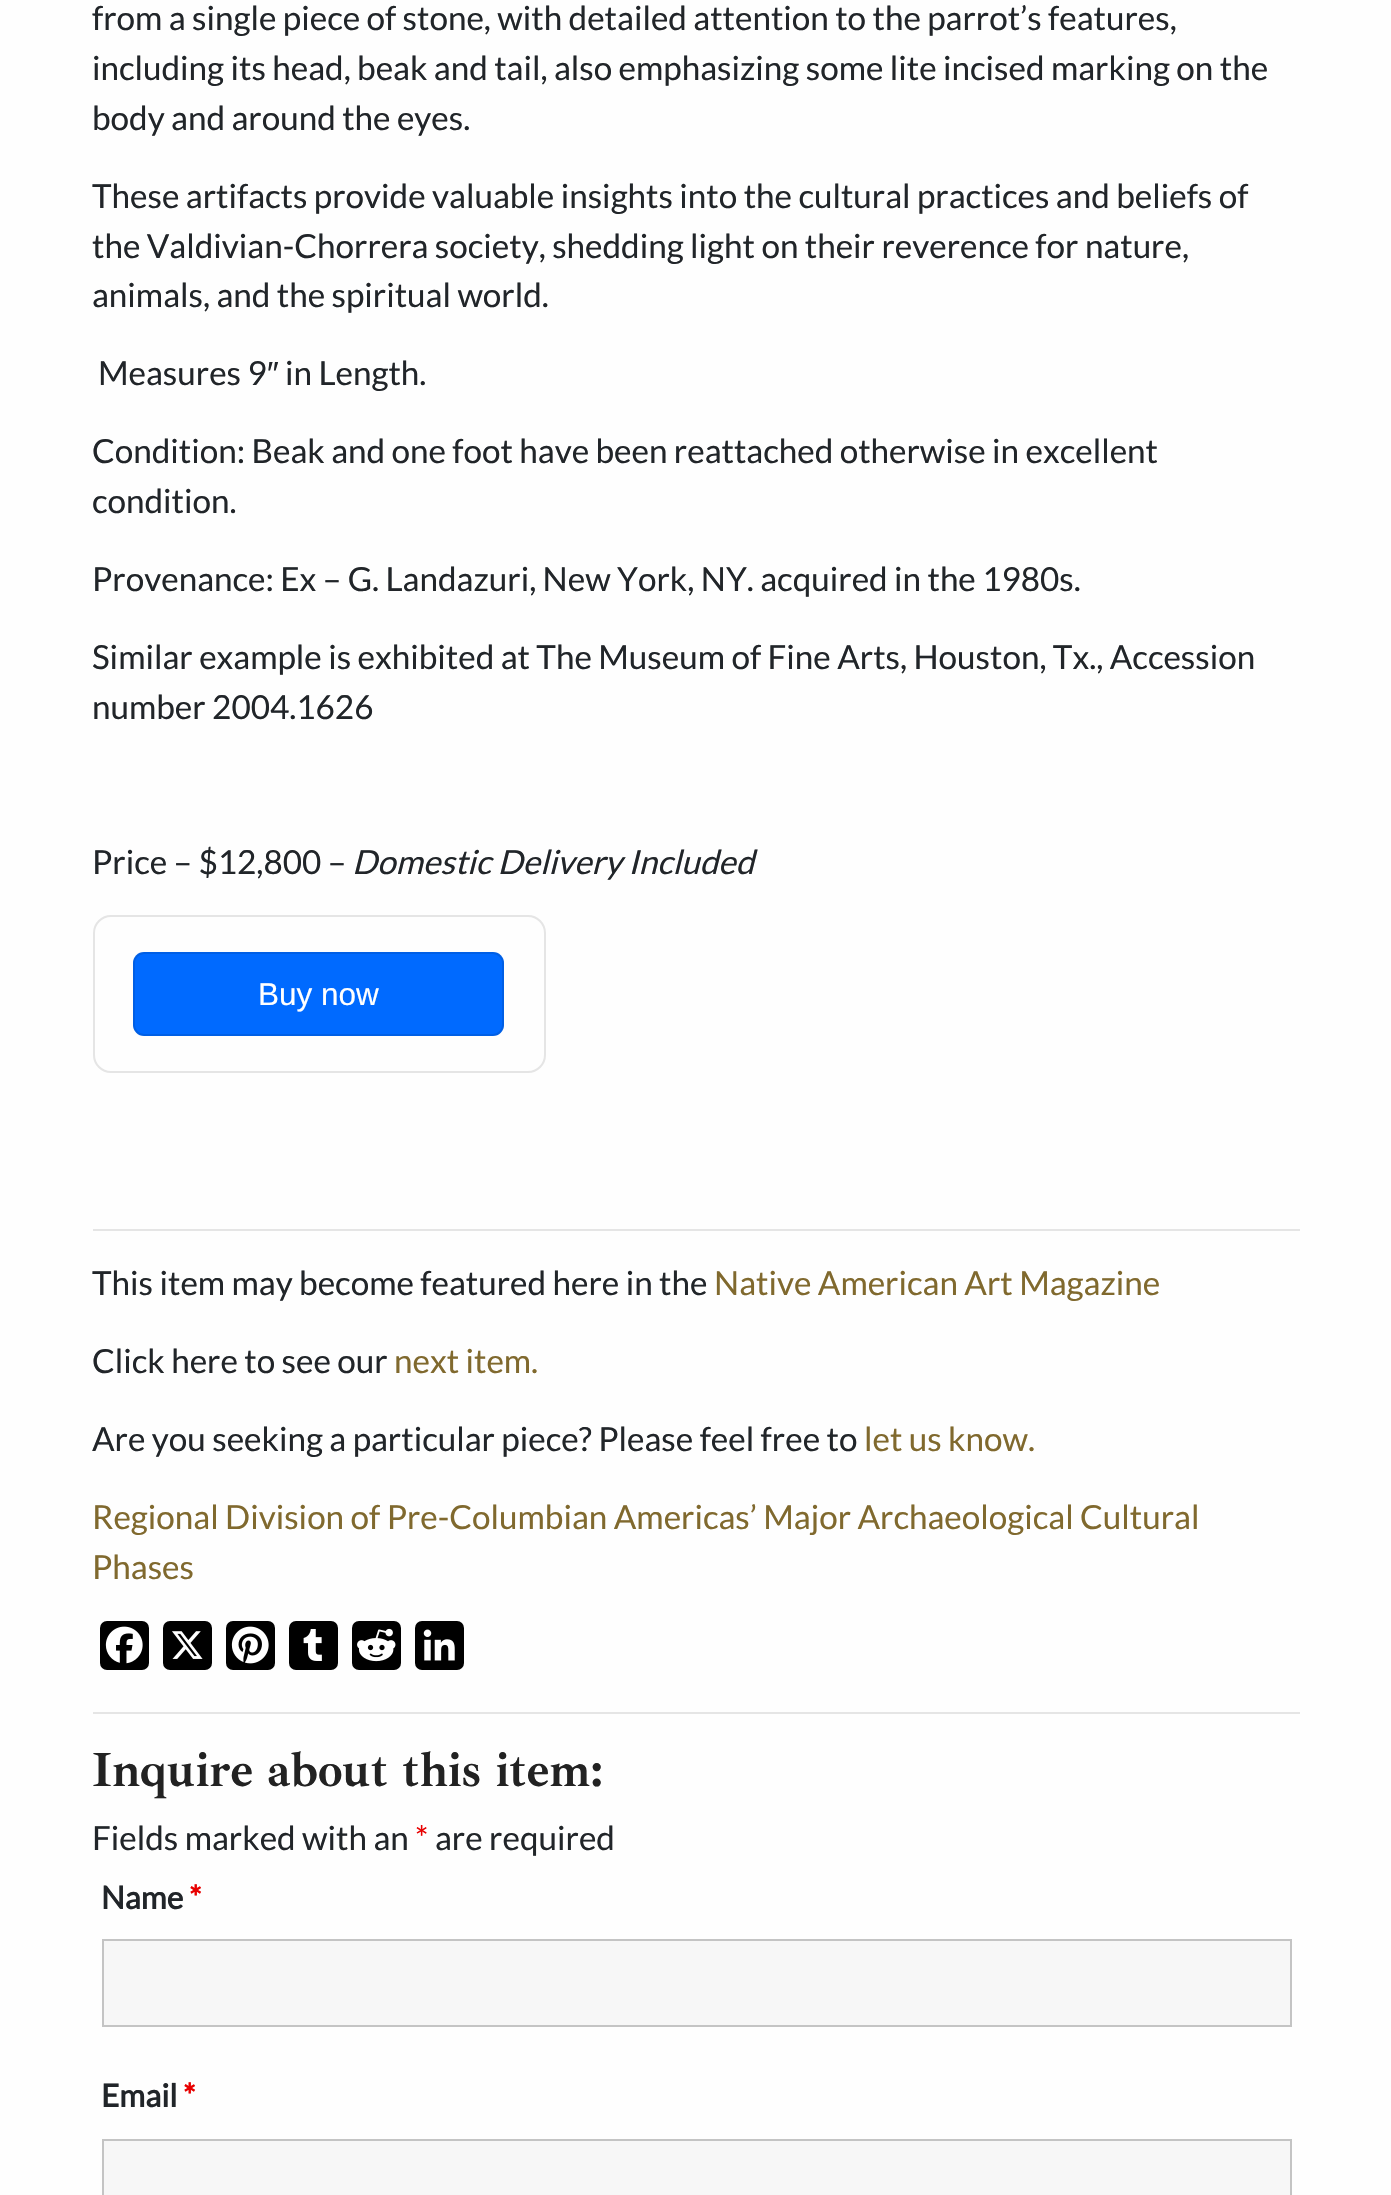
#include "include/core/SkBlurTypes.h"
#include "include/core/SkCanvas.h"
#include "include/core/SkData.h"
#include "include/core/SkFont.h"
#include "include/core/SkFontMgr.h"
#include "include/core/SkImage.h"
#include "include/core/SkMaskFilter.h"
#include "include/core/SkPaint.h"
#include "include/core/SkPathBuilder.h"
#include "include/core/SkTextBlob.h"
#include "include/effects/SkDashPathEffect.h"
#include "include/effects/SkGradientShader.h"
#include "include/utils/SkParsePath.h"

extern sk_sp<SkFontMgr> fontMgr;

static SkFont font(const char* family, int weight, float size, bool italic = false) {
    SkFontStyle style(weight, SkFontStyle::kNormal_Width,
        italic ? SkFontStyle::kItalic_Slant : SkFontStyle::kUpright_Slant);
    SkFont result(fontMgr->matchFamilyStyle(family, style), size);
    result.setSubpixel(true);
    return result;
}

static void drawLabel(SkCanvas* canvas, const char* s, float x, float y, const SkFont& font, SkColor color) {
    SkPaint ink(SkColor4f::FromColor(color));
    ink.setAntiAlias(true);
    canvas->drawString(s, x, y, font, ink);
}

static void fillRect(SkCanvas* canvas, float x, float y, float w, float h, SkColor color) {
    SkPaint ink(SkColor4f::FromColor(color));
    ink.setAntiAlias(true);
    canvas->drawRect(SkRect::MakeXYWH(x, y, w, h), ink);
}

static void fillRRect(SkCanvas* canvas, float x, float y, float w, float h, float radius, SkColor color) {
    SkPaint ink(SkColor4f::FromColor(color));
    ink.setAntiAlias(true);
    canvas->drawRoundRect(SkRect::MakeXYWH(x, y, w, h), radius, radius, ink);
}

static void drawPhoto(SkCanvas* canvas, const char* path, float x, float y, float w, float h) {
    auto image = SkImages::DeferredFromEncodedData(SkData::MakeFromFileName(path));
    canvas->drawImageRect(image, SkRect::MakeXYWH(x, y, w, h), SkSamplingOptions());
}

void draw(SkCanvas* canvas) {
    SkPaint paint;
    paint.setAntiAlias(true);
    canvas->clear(0xFFFEFEFE);
    SkFont font1 = font("Lato", 400, 33.25f);
    drawLabel(canvas, "from a single piece of stone, with detailed attention to the parrot’s features,", 92, 30, font1, 0xFF212529);
    drawLabel(canvas, "including its head, beak and tail, also emphasizing some lite incised marking on the", 92, 80, font1, 0xFF212529);
    drawLabel(canvas, "body and around the eyes.", 92, 130, font1, 0xFF212529);
    drawLabel(canvas, "These artifacts provide valuable insights into the cultural practices and beliefs of", 92, 208, font1, 0xFF212529);
    drawLabel(canvas, "the Valdivian-Chorrera society, shedding light on their reverence for nature,", 92, 258, font1, 0xFF212529);
    drawLabel(canvas, "animals, and the spiritual world.", 92, 307, font1, 0xFF212529);
    drawLabel(canvas, "Measures 9", 98, 385, font1, 0xFF212529);
    SkFont font2 = font("Liberation Sans", 400, 33.25f);
    drawLabel(canvas, "″", 267, 385, font2, 0xFF212529);
    drawLabel(canvas, "in Length.", 285, 385, font1, 0xFF212529);
    drawLabel(canvas, "Condition: Beak and one foot have been reattached otherwise in excellent", 92, 463, font1, 0xFF212529);
    drawLabel(canvas, "condition.", 92, 513, font1, 0xFF212529);
    drawLabel(canvas, "Provenance: Ex – G. Landazuri, New York, NY. acquired in the 1980s.", 92, 591, font1, 0xFF212529);
    drawLabel(canvas, "Similar example is exhibited at The Museum of Fine Arts, Houston, Tx., Accession", 92, 669, font1, 0xFF212529);
    drawLabel(canvas, "number 2004.1626", 92, 719, font1, 0xFF212529);
    drawLabel(canvas, "Price – $12,800 –", 92, 874, font1, 0xFF212529);
    SkFont font3 = font("Lato", 400, 33.25f, true);
    drawLabel(canvas, "Domestic Delivery Included", 352, 874, font3, 0xFF212529);
    paint.setStroke(true);
    paint.setStrokeWidth(2);
    paint.setColor(0xFFE5E5E5);
    canvas->drawRoundRect(SkRect::MakeXYWH(94, 916, 451, 156), 17, 17, paint);
    fillRRect(canvas, 133, 952, 371, 84, 11, 0xFF006AFF);
    paint.setColor(0x1A000000);
    canvas->drawRoundRect(SkRect::MakeXYWH(134, 953, 369, 82), 10, 10, paint);
    SkFont font4 = font("Liberation Sans", 400, 31.5f);
    drawLabel(canvas, "Buy now", 258, 1005, font4, 0xFFFFFFFF);
    fillRect(canvas, 93, 1229, 1207, 2, 0xFFE5E5E5);
    drawLabel(canvas, "This item may become featured here in the", 92, 1295, font1, 0xFF212529);
    drawLabel(canvas, "Native American Art Magazine", 714, 1295, font1, 0xFF80692E);
    drawLabel(canvas, "Click here to see our", 92, 1373, font1, 0xFF212529);
    drawLabel(canvas, "next item.", 394, 1373, font1, 0xFF80692E);
    drawLabel(canvas, "Are you seeking a particular piece? Please feel free to", 92, 1451, font1, 0xFF212529);
    drawLabel(canvas, "let us know.", 864, 1451, font1, 0xFF80692E);
    drawLabel(canvas, "Regional Division of Pre-Columbian Americas’ Major Archaeological Cultural", 92, 1529, font1, 0xFF80692E);
    drawLabel(canvas, "Phases", 92, 1579, font1, 0xFF80692E);
    fillRRect(canvas, 100, 1621, 49, 49, 7, 0xFF000000);
    drawPhoto(canvas, "assets/img1.png", 105, 1626, 38, 38);
    fillRRect(canvas, 163, 1621, 49, 49, 7, 0xFF000000);
    drawPhoto(canvas, "assets/img2.png", 172, 1631, 31, 28);
    fillRRect(canvas, 226, 1621, 49, 49, 7, 0xFF000000);
    drawPhoto(canvas, "assets/img3.png", 231, 1626, 38, 38);
    fillRRect(canvas, 289, 1621, 49, 49, 7, 0xFF000000);
    drawPhoto(canvas, "assets/img4.png", 303, 1629, 19, 32);
    fillRRect(canvas, 352, 1621, 49, 49, 7, 0xFF000000);
    drawPhoto(canvas, "assets/img5.png", 357, 1628, 39, 34);
    fillRRect(canvas, 415, 1621, 49, 49, 7, 0xFF000000);
    drawPhoto(canvas, "assets/img6.png", 423, 1629, 32, 32);
    fillRect(canvas, 93, 1712, 1207, 2, 0xFFE5E5E5);
    SkFont font5 = font("Ibarra Real Nova", 700, 49);
    drawLabel(canvas, "Inquire about this item:", 92, 1786, font5, 0xFF222222);
    drawLabel(canvas, "Fields marked with an", 92, 1850, font1, 0xFF212529);
    drawLabel(canvas, "*", 415, 1850, font1, 0xFFE80000);
    drawLabel(canvas, "are required", 435, 1850, font1, 0xFF212529);
    SkFont font6 = font("Lato", 700, 31.5f);
    drawLabel(canvas, "Name", 101, 1909, font6, 0xFF212529);
    drawLabel(canvas, "*", 189, 1909, font6, 0xFFE80000);
    paint.setStroke(false);
    paint.setColor(0xFFF7F7F7);
    canvas->drawRect(SkRect::MakeXYWH(103, 1940, 1188, 86), paint);
    paint.setStroke(true);
    paint.setColor(0xFFC4C4C4);
    canvas->drawRect(SkRect::MakeXYWH(103, 1940, 1188, 86), paint);
    drawLabel(canvas, "Email", 101, 2107, font6, 0xFF212529);
    drawLabel(canvas, "*", 183, 2107, font6, 0xFFE80000);
    paint.setStroke(false);
    paint.setColor(0xFFF7F7F7);
    canvas->drawRect(SkRect::MakeXYWH(103, 2140, 1188, 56), paint);
    paint.setStroke(true);
    paint.setColor(0xFFC4C4C4);
    canvas->drawRect(SkRect::MakeXYWH(103, 2140, 1188, 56), paint);
}
